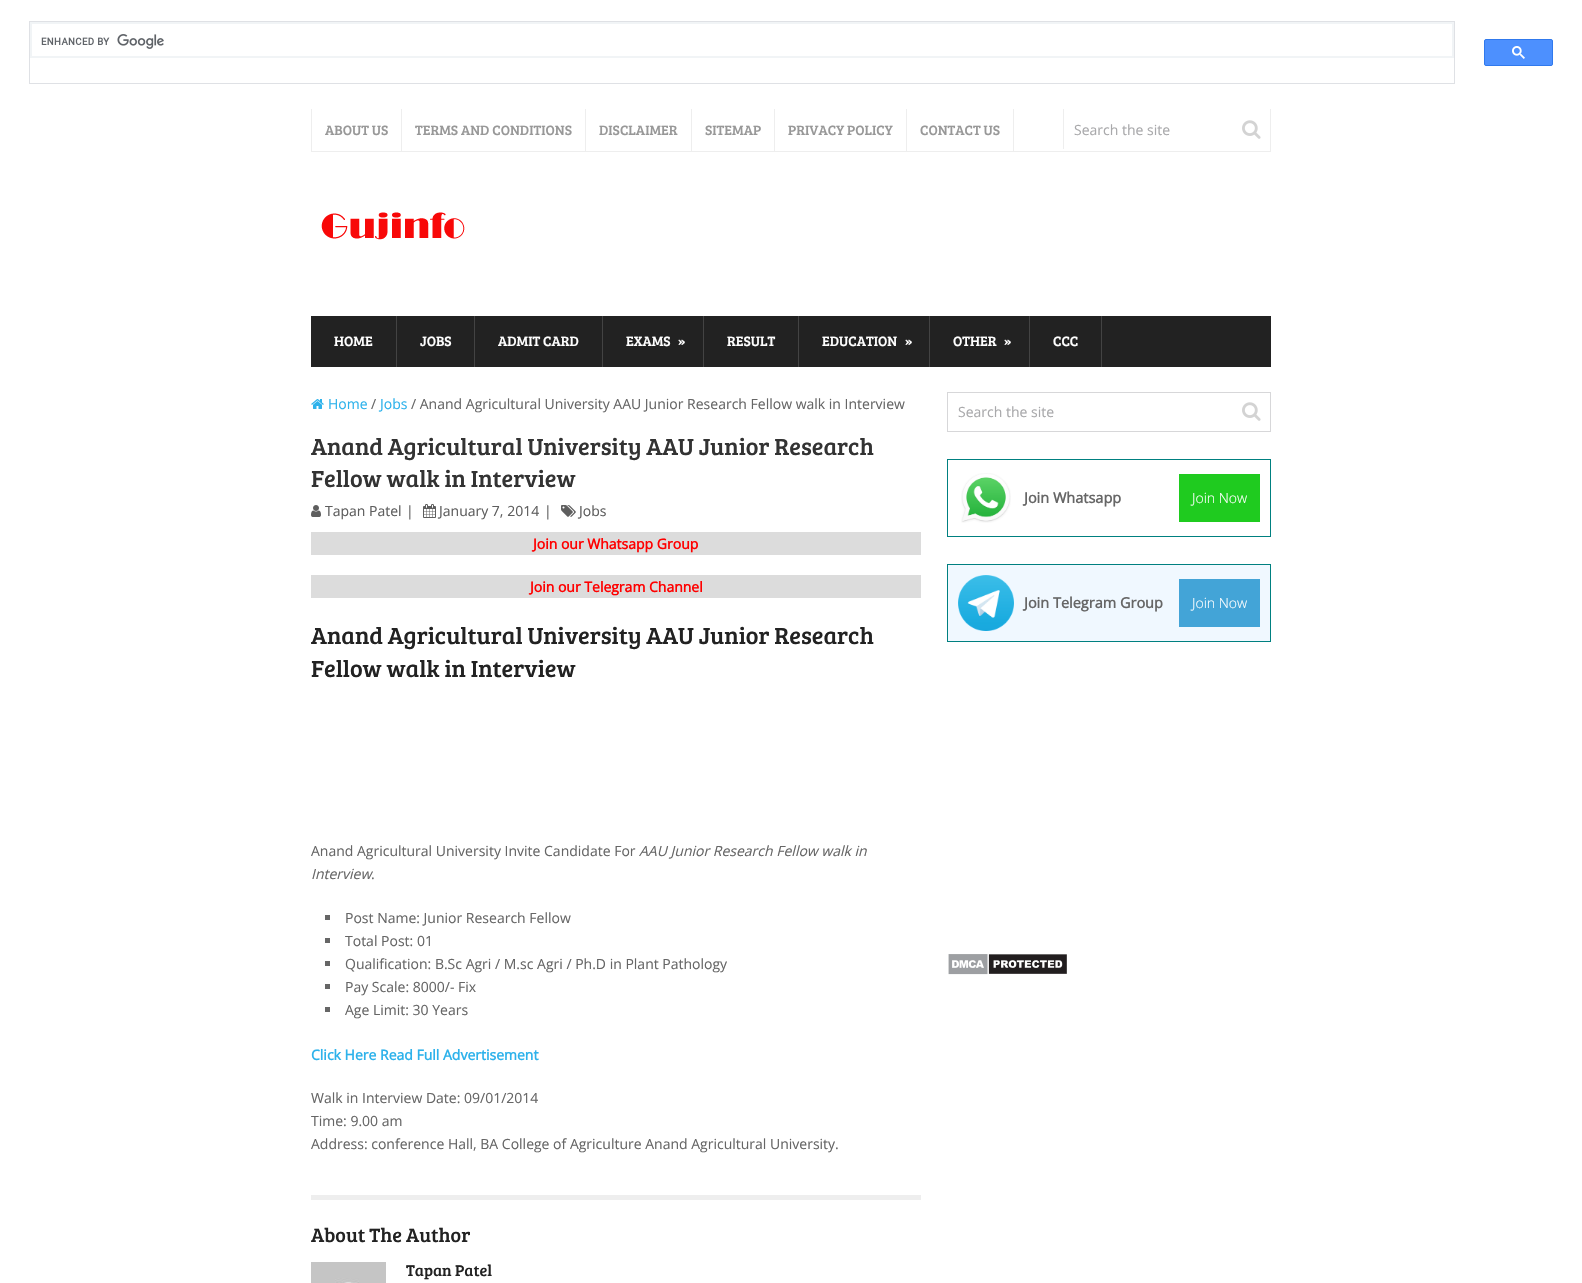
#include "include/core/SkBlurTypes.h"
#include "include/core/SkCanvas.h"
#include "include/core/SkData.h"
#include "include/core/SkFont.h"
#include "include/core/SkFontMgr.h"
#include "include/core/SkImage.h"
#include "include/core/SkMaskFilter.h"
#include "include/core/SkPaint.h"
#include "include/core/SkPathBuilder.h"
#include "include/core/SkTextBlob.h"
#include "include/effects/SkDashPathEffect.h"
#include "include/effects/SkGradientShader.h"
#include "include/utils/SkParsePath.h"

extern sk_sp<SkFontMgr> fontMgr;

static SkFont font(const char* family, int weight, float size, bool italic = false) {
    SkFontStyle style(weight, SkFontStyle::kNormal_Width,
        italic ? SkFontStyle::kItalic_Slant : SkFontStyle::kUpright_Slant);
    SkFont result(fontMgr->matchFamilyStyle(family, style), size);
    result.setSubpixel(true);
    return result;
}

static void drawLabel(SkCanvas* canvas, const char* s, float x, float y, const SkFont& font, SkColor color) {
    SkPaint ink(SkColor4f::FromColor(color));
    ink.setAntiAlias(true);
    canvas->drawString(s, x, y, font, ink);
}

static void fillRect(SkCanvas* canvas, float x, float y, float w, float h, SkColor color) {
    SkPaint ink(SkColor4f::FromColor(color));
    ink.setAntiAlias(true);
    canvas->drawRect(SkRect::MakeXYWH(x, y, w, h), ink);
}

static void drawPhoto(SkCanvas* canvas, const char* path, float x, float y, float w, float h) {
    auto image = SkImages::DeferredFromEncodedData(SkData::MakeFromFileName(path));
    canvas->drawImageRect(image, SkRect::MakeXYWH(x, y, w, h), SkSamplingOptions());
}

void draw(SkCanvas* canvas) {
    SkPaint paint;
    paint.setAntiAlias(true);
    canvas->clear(0xFFFFFFFF);
    paint.setStroke(true);
    paint.setStrokeWidth(1);
    paint.setColor(0xFFDFE1E5);
    canvas->drawRect(SkRect::MakeXYWH(29.5f, 21.5f, 1425, 62), paint);
    fillRect(canvas, 30, 22, 1424, 2, 0xFFF1F4F6);
    fillRect(canvas, 1452, 22, 2, 36, 0xFFF1F4F6);
    fillRect(canvas, 30, 56, 1424, 2, 0xFFF1F4F6);
    fillRect(canvas, 30, 22, 2, 36, 0xFFF1F4F6);
    drawPhoto(canvas, "assets/img1.png", 41, 34, 123, 15);
    paint.setStroke(false);
    paint.setColor(0xFF4D90FE);
    canvas->drawRoundRect(SkRect::MakeXYWH(1484.5f, 39.5f, 68, 26), 1.5f, 1.5f, paint);
    paint.setStroke(true);
    paint.setColor(0xFF3079ED);
    canvas->drawRoundRect(SkRect::MakeXYWH(1484.5f, 39.5f, 68, 26), 1.5f, 1.5f, paint);
    drawPhoto(canvas, "assets/img2.png", 1512, 46, 13, 13);
    fillRect(canvas, 1270, 109, 1, 43, 0xFFEEEEEE);
    fillRect(canvas, 311, 151, 960, 1, 0xFFEEEEEE);
    fillRect(canvas, 311, 109, 1, 43, 0xFFEEEEEE);
    fillRect(canvas, 401, 109, 1, 42, 0xFFEEEEEE);
    SkFont font1 = font("Bree Serif", 400, 14);
    drawLabel(canvas, "ABOUT US", 325, 135, font1, 0xFF989898);
    fillRect(canvas, 585, 109, 1, 42, 0xFFEEEEEE);
    drawLabel(canvas, "TERMS AND CONDITIONS", 415, 135, font1, 0xFF989898);
    fillRect(canvas, 691, 109, 1, 42, 0xFFEEEEEE);
    drawLabel(canvas, "DISCLAIMER", 599, 135, font1, 0xFF989898);
    fillRect(canvas, 774, 109, 1, 42, 0xFFEEEEEE);
    drawLabel(canvas, "SITEMAP", 705, 135, font1, 0xFF989898);
    fillRect(canvas, 906, 109, 1, 42, 0xFFEEEEEE);
    drawLabel(canvas, "PRIVACY POLICY", 788, 135, font1, 0xFF989898);
    fillRect(canvas, 1013, 109, 1, 42, 0xFFEEEEEE);
    drawLabel(canvas, "CONTACT US", 920, 135, font1, 0xFF989898);
    fillRect(canvas, 1063, 109, 1, 40, 0xFFEEEEEE);
    SkFont font2 = font("Open Sans", 400, 14);
    drawLabel(canvas, "Search the site", 1074, 135, font2, 0xFFA9A9AB);
    drawPhoto(canvas, "assets/img3.png", 1242, 120, 19, 19);
    drawPhoto(canvas, "assets/img4.png", 321, 212, 144, 28);
    fillRect(canvas, 311, 316, 960, 51, 0xFF222222);
    drawLabel(canvas, "HOME", 334, 346, font1, 0xFFFFFFFF);
    fillRect(canvas, 396, 316, 1, 51, 0xFF434343);
    drawLabel(canvas, "JOBS", 420, 346, font1, 0xFFFFFFFF);
    fillRect(canvas, 474, 316, 1, 51, 0xFF434343);
    drawLabel(canvas, "ADMIT CARD", 498, 346, font1, 0xFFFFFFFF);
    fillRect(canvas, 602, 316, 1, 51, 0xFF434343);
    drawLabel(canvas, "EXAMS", 626, 346, font1, 0xFFFFFFFF);
    drawLabel(canvas, "»", 678, 346, font1, 0xFFFFFFFF);
    fillRect(canvas, 703, 316, 1, 51, 0xFF434343);
    drawLabel(canvas, "RESULT", 727, 346, font1, 0xFFFFFFFF);
    fillRect(canvas, 798, 316, 1, 51, 0xFF434343);
    drawLabel(canvas, "EDUCATION", 822, 346, font1, 0xFFFFFFFF);
    drawLabel(canvas, "»", 905, 346, font1, 0xFFFFFFFF);
    fillRect(canvas, 929, 316, 1, 51, 0xFF434343);
    drawLabel(canvas, "OTHER", 953, 346, font1, 0xFFFFFFFF);
    drawLabel(canvas, "»", 1004, 346, font1, 0xFFFFFFFF);
    fillRect(canvas, 1101, 316, 1, 51, 0xFF434343);
    fillRect(canvas, 1029, 316, 1, 51, 0xFF434343);
    drawLabel(canvas, "CCC", 1053, 346, font1, 0xFFFFFFFF);
    drawPhoto(canvas, "assets/img5.png", 311, 399, 13, 10);
    drawLabel(canvas, "Home", 328, 409, font2, 0xFF2DB2EB);
    drawLabel(canvas, "/", 371, 409, font2, 0xFF666666);
    drawLabel(canvas, "Jobs", 380, 409, font2, 0xFF2DB2EB);
    drawLabel(canvas, "/ Anand Agricultural University AAU Junior Research Fellow walk in Interview", 411, 409, font2, 0xFF666666);
    fillRect(canvas, 311, 1195, 610, 5, 0xFFEEEEEE);
    SkFont font3 = font("Bree Serif", 400, 24);
    drawLabel(canvas, "Anand Agricultural University AAU Junior Research", 311, 455, font3, 0xFF333333);
    drawLabel(canvas, "Fellow walk in Interview", 311, 487, font3, 0xFF333333);
    drawPhoto(canvas, "assets/img6.png", 311, 505, 10, 12);
    drawLabel(canvas, "Tapan Patel", 325, 516, font2, 0xFF5E5E5E);
    drawLabel(canvas, "|", 406, 516, font2, 0xFF5E5E5E);
    drawPhoto(canvas, "assets/img7.png", 423, 504, 13, 14);
    drawLabel(canvas, "January 7, 2014", 439, 516, font2, 0xFF5E5E5E);
    drawLabel(canvas, "|", 544, 516, font2, 0xFF5E5E5E);
    drawPhoto(canvas, "assets/img8.png", 561, 505, 15, 12);
    drawLabel(canvas, "Jobs", 579, 516, font2, 0xFF5E5E5E);
    fillRect(canvas, 311, 532, 610, 23, 0xFFDCDCDC);
    SkFont font4 = font("Open Sans", 700, 14);
    drawLabel(canvas, "Join our Whatsapp Group", 533, 549, font4, 0xFFFF0000);
    fillRect(canvas, 311, 575, 610, 23, 0xFFDCDCDC);
    drawLabel(canvas, "Join our Telegram Channel", 530, 592, font4, 0xFFFF0000);
    drawLabel(canvas, "Anand Agricultural University AAU Junior Research", 311, 644, font3, 0xFF222222);
    drawLabel(canvas, "Fellow walk in Interview", 311, 677, font3, 0xFF222222);
    drawLabel(canvas, "Anand Agricultural University Invite Candidate For", 311, 856, font2, 0xFF666666);
    SkFont font5 = font("Open Sans", 400, 14, true);
    drawLabel(canvas, "AAU Junior Research Fellow walk in", 639, 856, font5, 0xFF666666);
    drawLabel(canvas, "Interview", 311, 879, font5, 0xFF666666);
    drawLabel(canvas, ".", 371, 879, font2, 0xFF666666);
    fillRect(canvas, 325, 915, 5, 5, 0xFF666666);
    drawLabel(canvas, "Post Name: Junior Research Fellow", 345, 923, font2, 0xFF666666);
    fillRect(canvas, 325, 938, 5, 5, 0xFF666666);
    drawLabel(canvas, "Total Post: 01", 345, 946, font2, 0xFF666666);
    fillRect(canvas, 325, 961, 5, 5, 0xFF666666);
    drawLabel(canvas, "Qualification: B.Sc Agri / M.sc Agri / Ph.D in Plant Pathology", 345, 969, font2, 0xFF666666);
    fillRect(canvas, 325, 984, 5, 5, 0xFF666666);
    drawLabel(canvas, "Pay Scale: 8000/- Fix", 345, 992, font2, 0xFF666666);
    fillRect(canvas, 325, 1007, 5, 5, 0xFF666666);
    drawLabel(canvas, "Age Limit: 30 Years", 345, 1015, font2, 0xFF666666);
    drawLabel(canvas, "Click Here Read Full Advertisement", 311, 1060, font4, 0xFF2DB2EB);
    drawLabel(canvas, "Walk in Interview Date: 09/01/2014", 311, 1103, font2, 0xFF666666);
    drawLabel(canvas, "Time: 9.00 am", 311, 1126, font2, 0xFF666666);
    drawLabel(canvas, "Address: conference Hall, BA College of Agriculture Anand Agricultural University.", 311, 1149, font2, 0xFF666666);
    SkFont font6 = font("Bree Serif", 400, 20);
    drawLabel(canvas, "About The Author", 311, 1242, font6, 0xFF222222);
    drawPhoto(canvas, "assets/img9.png", 311, 1262, 75, 21);
    SkFont font7 = font("Bree Serif", 400, 16);
    drawLabel(canvas, "Tapan Patel", 406, 1276, font7, 0xFF222222);
    paint.setColor(0xFFD7D7D9);
    canvas->drawRect(SkRect::MakeXYWH(947.5f, 392.5f, 323, 39), paint);
    drawLabel(canvas, "Search the site", 958, 417, font2, 0xFFA9A9AB);
    drawPhoto(canvas, "assets/img3.png", 1242, 402, 19, 19);
    paint.setColor(0xFF008080);
    canvas->drawRect(SkRect::MakeXYWH(947.5f, 459.5f, 323, 77), paint);
    drawPhoto(canvas, "assets/img10.png", 961, 473, 50, 50);
    SkFont font8 = font("Open Sans", 700, 14.5f);
    drawLabel(canvas, "Join Whatsapp", 1024, 503, font8, 0xFF666666);
    fillRect(canvas, 1179, 474, 81, 48, 0xFF1FCB1F);
    SkFont font9 = font("Open Sans", 300, 14);
    drawLabel(canvas, "Join Now", 1192, 503, font9, 0xFFFFFFFF);
    paint.setStroke(false);
    paint.setColor(0xFFF0F8FF);
    canvas->drawRect(SkRect::MakeXYWH(947.5f, 564.5f, 323, 77), paint);
    paint.setStroke(true);
    paint.setColor(0xFF008080);
    canvas->drawRect(SkRect::MakeXYWH(947.5f, 564.5f, 323, 77), paint);
    drawPhoto(canvas, "assets/img11.png", 958, 575, 56, 56);
    drawLabel(canvas, "Join Telegram Group", 1024, 608, font8, 0xFF666666);
    fillRect(canvas, 1179, 579, 81, 48, 0xFF43A4D7);
    drawLabel(canvas, "Join Now", 1192, 608, font9, 0xFFFFFFFF);
    drawPhoto(canvas, "assets/img12.png", 948, 954, 119, 21);
}
